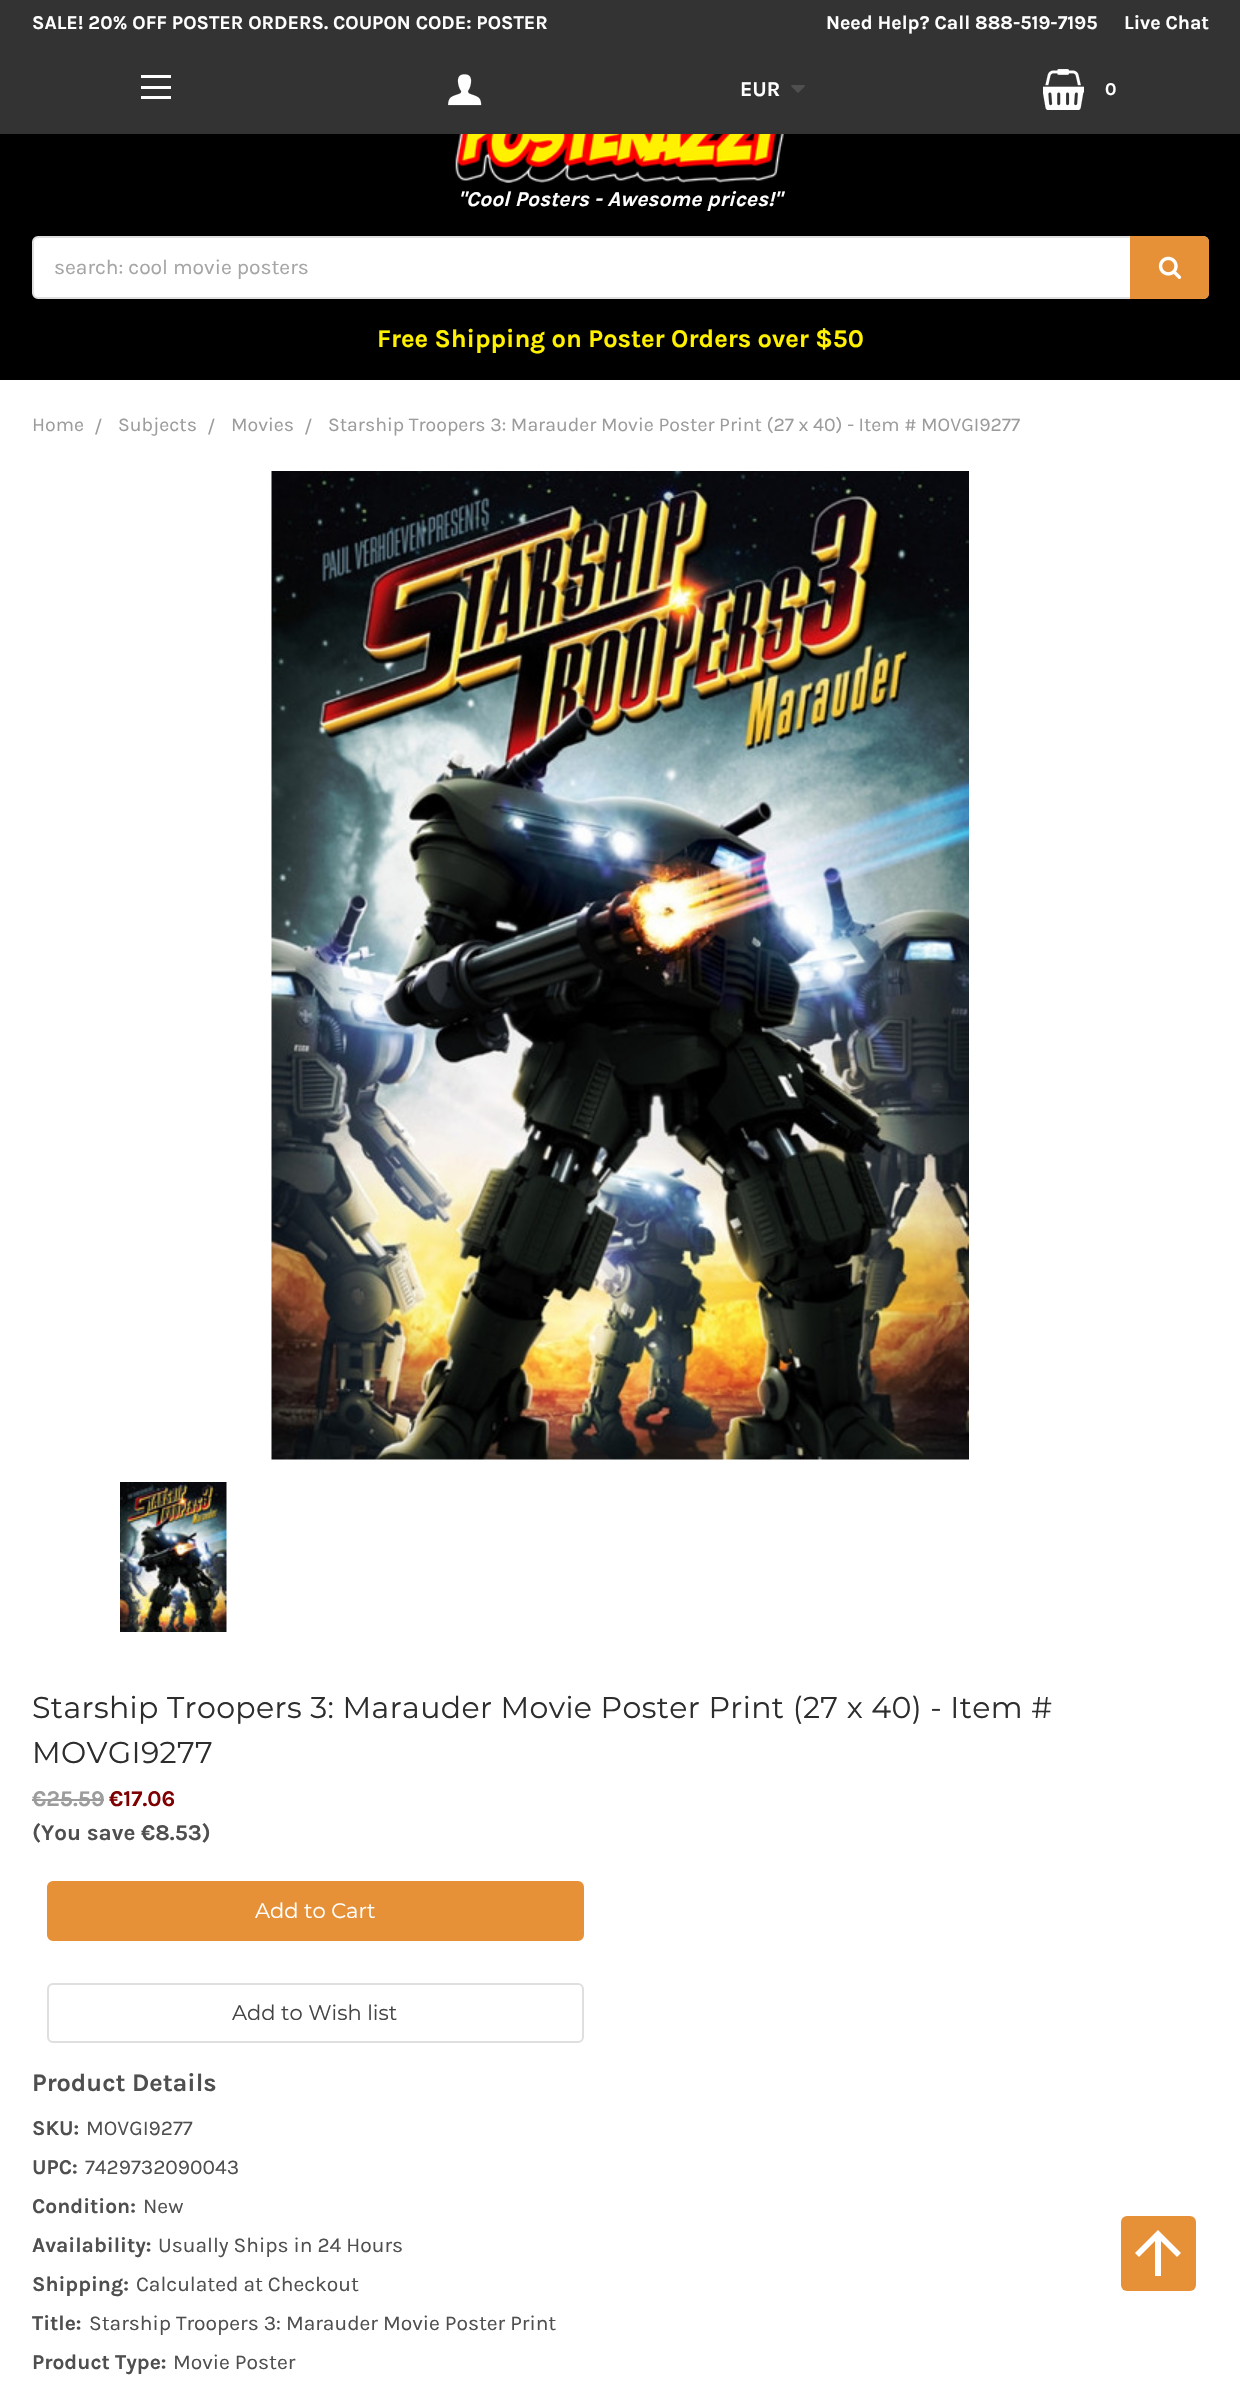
#include "include/core/SkBlurTypes.h"
#include "include/core/SkCanvas.h"
#include "include/core/SkData.h"
#include "include/core/SkFont.h"
#include "include/core/SkFontMgr.h"
#include "include/core/SkImage.h"
#include "include/core/SkMaskFilter.h"
#include "include/core/SkPaint.h"
#include "include/core/SkPathBuilder.h"
#include "include/core/SkTextBlob.h"
#include "include/effects/SkDashPathEffect.h"
#include "include/effects/SkGradientShader.h"
#include "include/utils/SkParsePath.h"

extern sk_sp<SkFontMgr> fontMgr;

static SkFont font(const char* family, int weight, float size, bool italic = false) {
    SkFontStyle style(weight, SkFontStyle::kNormal_Width,
        italic ? SkFontStyle::kItalic_Slant : SkFontStyle::kUpright_Slant);
    SkFont result(fontMgr->matchFamilyStyle(family, style), size);
    result.setSubpixel(true);
    return result;
}

static void drawLabel(SkCanvas* canvas, const char* s, float x, float y, const SkFont& font, SkColor color) {
    SkPaint ink(SkColor4f::FromColor(color));
    ink.setAntiAlias(true);
    canvas->drawString(s, x, y, font, ink);
}

static void drawTracked(SkCanvas* canvas, const char* s, float x, float y, const SkFont& font, const SkPaint& ink, float letter, float word) {
    std::vector<SkGlyphID> glyphs(font.countText(s, strlen(s), SkTextEncoding::kUTF8));
    std::vector<float> xs(glyphs.size());
    font.textToGlyphs(s, strlen(s), SkTextEncoding::kUTF8, glyphs);
    font.getXPos(glyphs, xs, x);
    float extra = 0;
    for (size_t i = 0; i < glyphs.size(); i++) {
        xs[i] += extra;
        extra += letter + word * (glyphs[i] == font.unicharToGlyph(' '));
    }
    canvas->drawTextBlob(SkTextBlob::MakeFromPosHGlyphs(glyphs, xs, y, font), 0, 0, ink);
}

static void fillRect(SkCanvas* canvas, float x, float y, float w, float h, SkColor color) {
    SkPaint ink(SkColor4f::FromColor(color));
    ink.setAntiAlias(true);
    canvas->drawRect(SkRect::MakeXYWH(x, y, w, h), ink);
}

static void fillRRect(SkCanvas* canvas, float x, float y, float w, float h, float radius, SkColor color) {
    SkPaint ink(SkColor4f::FromColor(color));
    ink.setAntiAlias(true);
    canvas->drawRoundRect(SkRect::MakeXYWH(x, y, w, h), radius, radius, ink);
}

static void drawPhoto(SkCanvas* canvas, const char* path, float x, float y, float w, float h) {
    auto image = SkImages::DeferredFromEncodedData(SkData::MakeFromFileName(path));
    canvas->drawImageRect(image, SkRect::MakeXYWH(x, y, w, h), SkSamplingOptions());
}

static SkPath parsePath(const char* data, bool evenOdd = false) {
    SkPath result = *SkParsePath::FromSVGString(data);
    if (evenOdd) result.setFillType(SkPathFillType::kEvenOdd);
    return result;
}

void draw(SkCanvas* canvas) {
    SkPaint paint;
    paint.setAntiAlias(true);
    canvas->clear(0xFFFFFFFF);
    fillRect(canvas, 0, 134, 1240, 246, 0xFF000000);
    fillRect(canvas, 0, 0, 1240, 134, 0xFF333333);
    SkFont font1 = font("Karla", 700, 19.5f);
    drawLabel(canvas, "SALE! 20% OFF POSTER ORDERS. COUPON CODE: POSTER", 32, 29, font1, 0xFFFFFFFF);
    drawLabel(canvas, "Need Help? Call 888-519-7195", 826, 29, font1, 0xFFFFFFFF);
    drawLabel(canvas, "Live Chat", 1124, 29, font1, 0xFFFFFFFF);
    fillRect(canvas, 141, 86, 30, 3, 0xFFFFFFFF);
    fillRect(canvas, 141, 75, 30, 3, 0xFFFFFFFF);
    fillRect(canvas, 141, 96, 30, 3, 0xFFFFFFFF);
    drawPhoto(canvas, "assets/img1.png", 448, 74, 34, 32);
    SkFont font2 = font("Karla", 700, 21);
    drawLabel(canvas, "EUR", 740, 96, font2, 0xFFFFFFFF);
    drawPhoto(canvas, "assets/img2.png", 791, 85, 14, 8);
    drawPhoto(canvas, "assets/img3.png", 1043, 69, 41, 41);
    SkFont font3 = font("Karla", 700, 18);
    drawLabel(canvas, "0", 1105, 95, font3, 0xFFFFFFFF);
    SkFont font4 = font("Karla", 700, 25.5f);
    drawLabel(canvas, "Free Shipping on Poster Orders over $50", 377, 347, font4, 0xFFFFF100);
    drawPhoto(canvas, "assets/img4.png", 455, 134, 330, 49);
    SkFont font5 = font("Karla", 700, 21, true);
    drawLabel(canvas, "\"Cool Posters - Awesome prices!\"", 458, 206, font5, 0xFFFFFFFF);
    paint.setColor(0xFFFFFFFF);
    canvas->drawRoundRect(SkRect::MakeXYWH(33, 237, 1175, 61), 5, 5, paint);
    paint.setStroke(true);
    paint.setStrokeWidth(2);
    paint.setColor(0xFFDFDFDF);
    canvas->drawRoundRect(SkRect::MakeXYWH(33, 237, 1175, 61), 5, 5, paint);
    SkFont font6 = font("Karla", 400, 21);
    drawLabel(canvas, "search: cool movie posters", 54, 274, font6, 0xFFA5A5A5);
    paint.setStroke(false);
    paint.setColor(0xFFE69138);
    canvas->drawPath(parsePath("M1131 237H1203C1206 237 1208 239 1208 242V293C1208 296 1206 298 1203 298H1131Z"), paint);
    paint.setStroke(true);
    canvas->drawPath(parsePath("M1131 237H1203C1206 237 1208 239 1208 242V293C1208 296 1206 298 1203 298H1131Z"), paint);
    drawPhoto(canvas, "assets/img5.png", 1158, 256, 24, 23);
    SkFont font7 = font("Karla", 400, 19.5f);
    drawLabel(canvas, "Home", 32, 431, font7, 0xFF9C9C9C);
    drawLabel(canvas, "/", 94, 433, font7, 0xFF9C9C9C);
    drawLabel(canvas, "Subjects", 118, 431, font7, 0xFF9C9C9C);
    drawLabel(canvas, "/", 207, 433, font7, 0xFF9C9C9C);
    drawLabel(canvas, "Movies", 231, 431, font7, 0xFF9C9C9C);
    drawLabel(canvas, "/", 304, 433, font7, 0xFF9C9C9C);
    drawLabel(canvas, "Starship Troopers 3: Marauder Movie Poster Print (27 x 40) - Item # MOVGI9277", 328, 431, font7, 0xFF9C9C9C);
    drawPhoto(canvas, "assets/img6.png", 271, 471, 698, 989);
    drawPhoto(canvas, "assets/img7.png", 120, 1482, 107, 150);
    SkFont font8 = font("Montserrat", 400, 30);
    paint.setStroke(false);
    paint.setColor(0xFF2D2D2D);
    drawTracked(canvas, "Starship Troopers 3: Marauder Movie Poster Print (27 x 40) - Item #", 32, 1718, font8, paint, 0.38f, 0);
    drawTracked(canvas, "MOVGI9277", 32, 1763, font8, paint, 0.38f, 0);
    SkFont font9 = font("Karla", 700, 22.5f);
    drawLabel(canvas, "€25.59", 32, 1806, font9, 0xFF9C9C9C);
    fillRect(canvas, 32, 1799, 72, 2, 0xFF9C9C9C);
    drawLabel(canvas, "€17.06", 109, 1806, font9, 0xFF7F0000);
    drawLabel(canvas, "(You save €8.53)", 32, 1840, font9, 0xFF4F4F4F);
    paint.setColor(0xFFE69138);
    canvas->drawRoundRect(SkRect::MakeXYWH(48, 1882, 535, 58), 5, 5, paint);
    paint.setStroke(true);
    canvas->drawRoundRect(SkRect::MakeXYWH(48, 1882, 535, 58), 5, 5, paint);
    SkFont font10 = font("Montserrat", 400, 21);
    drawLabel(canvas, "Add to Cart", 255, 1918, font10, 0xFFFFFFFF);
    paint.setColor(0xFFDFDFDF);
    canvas->drawRoundRect(SkRect::MakeXYWH(48, 1984, 535, 58), 5, 5, paint);
    drawLabel(canvas, "Add to Wish list", 232, 2020, font10, 0xFF454545);
    SkFont font11 = font("Karla", 700, 25.25f);
    drawLabel(canvas, "Product Details", 32, 2091, font11, 0xFF4F4F4F);
    drawLabel(canvas, "SKU:", 32, 2135, font2, 0xFF4F4F4F);
    drawLabel(canvas, "MOVGI9277", 86, 2135, font6, 0xFF4F4F4F);
    drawLabel(canvas, "UPC:", 32, 2174, font2, 0xFF4F4F4F);
    drawLabel(canvas, "7429732090043", 85, 2174, font6, 0xFF4F4F4F);
    drawLabel(canvas, "Condition:", 32, 2213, font2, 0xFF4F4F4F);
    drawLabel(canvas, "New", 143, 2213, font6, 0xFF4F4F4F);
    drawLabel(canvas, "Availability:", 32, 2252, font2, 0xFF4F4F4F);
    drawLabel(canvas, "Usually Ships in 24 Hours", 158, 2252, font6, 0xFF4F4F4F);
    drawLabel(canvas, "Shipping:", 32, 2291, font2, 0xFF4F4F4F);
    drawLabel(canvas, "Calculated at Checkout", 136, 2291, font6, 0xFF4F4F4F);
    drawLabel(canvas, "Title:", 32, 2330, font2, 0xFF4F4F4F);
    drawLabel(canvas, "Starship Troopers 3: Marauder Movie Poster Print", 89, 2330, font6, 0xFF4F4F4F);
    drawLabel(canvas, "Product Type:", 32, 2369, font2, 0xFF4F4F4F);
    drawLabel(canvas, "Movie Poster", 173, 2369, font6, 0xFF4F4F4F);
    fillRRect(canvas, 1121, 2216, 75, 75, 6, 0xFFE69138);
    paint.setStroke(false);
    paint.setColor(0xFFFFFFFF);
    canvas->drawPath(parsePath("M1161 2276V2241L1177 2257L1181 2253L1158 2230L1135 2253L1139 2257L1155 2241V2276Z"), paint);
}
